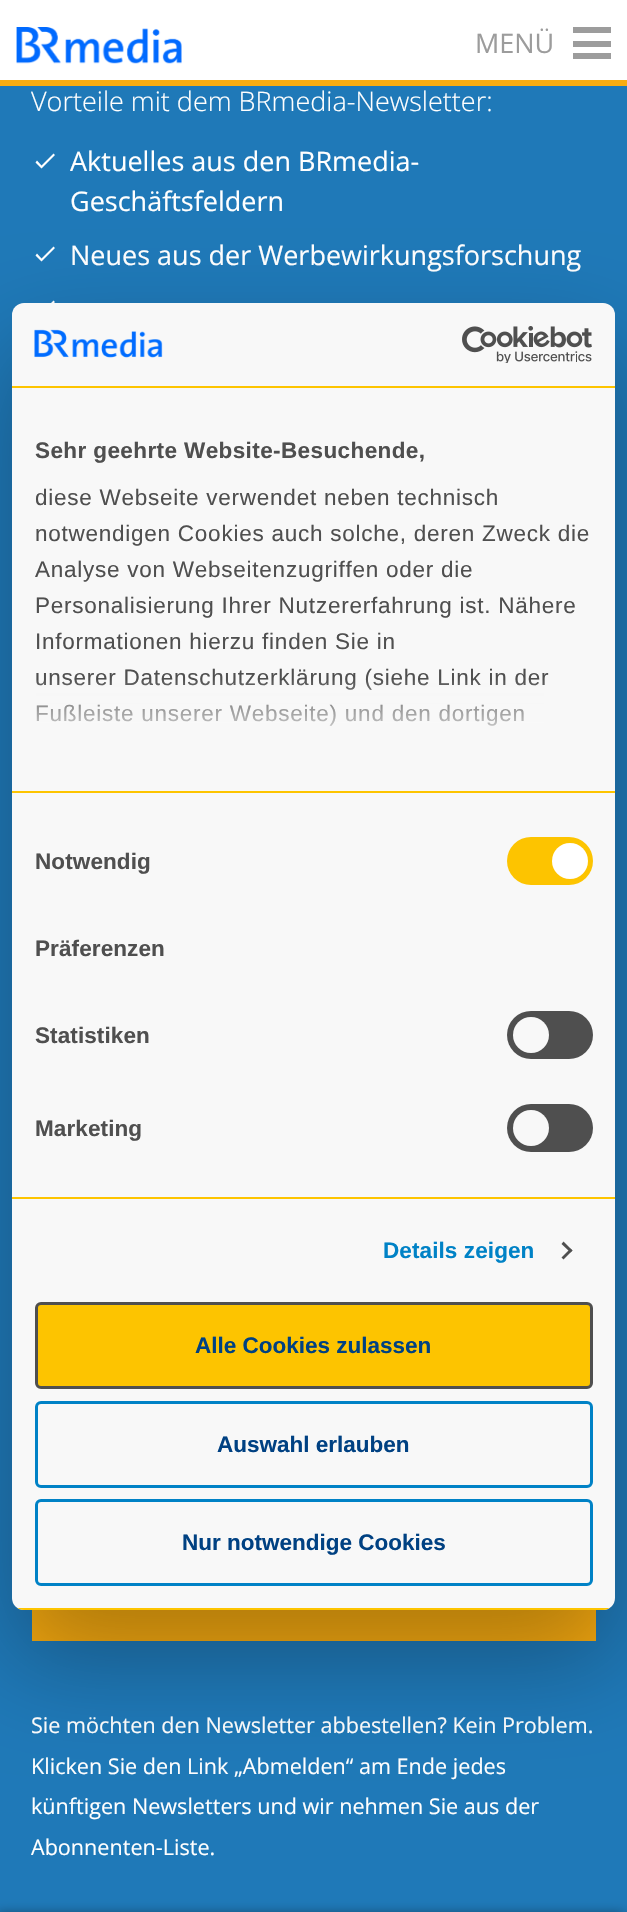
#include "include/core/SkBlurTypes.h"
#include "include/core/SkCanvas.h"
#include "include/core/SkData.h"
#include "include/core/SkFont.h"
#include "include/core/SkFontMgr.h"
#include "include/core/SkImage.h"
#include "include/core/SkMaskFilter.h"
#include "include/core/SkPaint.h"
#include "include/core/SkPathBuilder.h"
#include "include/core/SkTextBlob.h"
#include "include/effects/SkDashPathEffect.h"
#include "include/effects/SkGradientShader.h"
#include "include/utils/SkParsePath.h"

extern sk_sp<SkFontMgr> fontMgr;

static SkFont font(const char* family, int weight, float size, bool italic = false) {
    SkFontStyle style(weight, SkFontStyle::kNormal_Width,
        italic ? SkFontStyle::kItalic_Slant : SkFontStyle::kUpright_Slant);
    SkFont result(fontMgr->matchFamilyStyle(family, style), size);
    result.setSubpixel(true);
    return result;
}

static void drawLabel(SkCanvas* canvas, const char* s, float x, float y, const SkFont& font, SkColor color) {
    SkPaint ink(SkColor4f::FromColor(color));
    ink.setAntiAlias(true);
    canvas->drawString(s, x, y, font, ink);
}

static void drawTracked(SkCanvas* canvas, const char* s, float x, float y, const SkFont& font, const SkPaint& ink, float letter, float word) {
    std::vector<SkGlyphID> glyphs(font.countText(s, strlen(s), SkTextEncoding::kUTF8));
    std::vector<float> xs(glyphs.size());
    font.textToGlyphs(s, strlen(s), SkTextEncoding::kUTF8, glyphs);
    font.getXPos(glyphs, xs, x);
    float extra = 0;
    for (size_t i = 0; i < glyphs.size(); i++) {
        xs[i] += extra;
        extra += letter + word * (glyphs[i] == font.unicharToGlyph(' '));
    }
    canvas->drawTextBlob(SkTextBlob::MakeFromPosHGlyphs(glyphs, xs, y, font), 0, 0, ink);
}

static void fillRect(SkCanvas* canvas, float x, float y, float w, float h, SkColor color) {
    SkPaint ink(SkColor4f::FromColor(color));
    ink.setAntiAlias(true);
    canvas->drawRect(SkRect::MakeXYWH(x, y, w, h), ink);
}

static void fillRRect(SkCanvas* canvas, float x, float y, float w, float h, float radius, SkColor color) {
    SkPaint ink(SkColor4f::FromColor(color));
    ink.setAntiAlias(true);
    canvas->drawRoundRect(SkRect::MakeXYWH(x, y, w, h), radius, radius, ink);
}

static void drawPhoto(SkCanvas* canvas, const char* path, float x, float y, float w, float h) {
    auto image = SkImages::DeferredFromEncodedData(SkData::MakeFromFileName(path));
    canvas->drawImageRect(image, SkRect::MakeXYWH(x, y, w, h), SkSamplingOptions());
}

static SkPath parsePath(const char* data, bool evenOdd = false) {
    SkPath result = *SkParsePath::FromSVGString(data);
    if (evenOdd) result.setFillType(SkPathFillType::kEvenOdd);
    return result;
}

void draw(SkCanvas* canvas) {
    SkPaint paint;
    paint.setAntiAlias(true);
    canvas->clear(0xFFFFFFFF);
    paint.setColor(0xFF1F79B8);
    canvas->drawPath(parsePath("M0-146V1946H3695L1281-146Z", true), paint);
    fillRect(canvas, 0, 0, 627, 80, 0xFFFFFFFF);
    fillRect(canvas, 0, 80, 627, 6, 0xFFF9AC10);
    drawPhoto(canvas, "assets/img1.png", 16, 27, 166, 37);
    SkFont font1 = font("Open Sans", 400, 27);
    drawLabel(canvas, "MENÜ", 475, 53, font1, 0xFF9C9C9C);
    fillRect(canvas, 573, 27, 38, 6, 0xFF9C9C9C);
    fillRect(canvas, 573, 41, 38, 6, 0xFF9C9C9C);
    fillRect(canvas, 573, 53, 38, 6, 0xFF9C9C9C);
    SkFont font2 = font("Open Sans", 300, 27);
    drawLabel(canvas, "Vorteile mit dem BRmedia-Newsletter:", 31, 111, font2, 0xFFFFFFFF);
    paint.setColor(0xFFFFFFFF);
    canvas->drawPath(parsePath("M41.5 165.5L37 160.5L35.5 162.5L41.5 168.5L55 155L53.5 153.5Z"), paint);
    drawLabel(canvas, "Aktuelles aus den BRmedia-", 70, 171, font1, 0xFFFFFFFF);
    drawLabel(canvas, "Geschäftsfeldern", 70, 211, font1, 0xFFFFFFFF);
    canvas->drawPath(parsePath("M41.5 258.5L37 253.5L35.5 255.5L41.5 261.5L55 248L53.5 246.5Z"), paint);
    drawLabel(canvas, "Neues aus der Werbewirkungsforschung", 70, 265, font1, 0xFFFFFFFF);
    canvas->drawPath(parsePath("M41.5 312.5L37 307.5L35.5 309.5L41.5 315.5L55 302L53.5 300.5Z"), paint);
    fillRect(canvas, 32, 1610, 564, 31, 0xFFF9AC10);
    SkFont font3 = font("Open Sans", 400, 21.6f);
    drawLabel(canvas, "Sie möchten den Newsletter abbestellen? Kein Problem.", 31, 1733, font3, 0xFFFFFFFF);
    drawLabel(canvas, "Klicken Sie den Link „Abmelden“ am Ende jedes", 31, 1774, font3, 0xFFFFFFFF);
    drawLabel(canvas, "künftigen Newsletters und wir nehmen Sie aus der", 31, 1814, font3, 0xFFFFFFFF);
    drawLabel(canvas, "Abonnenten-Liste.", 31, 1855, font3, 0xFFFFFFFF);
    paint.setColor(0x4D000000);
    paint.setMaskFilter(SkMaskFilter::MakeBlur(kNormal_SkBlurStyle, 51));
    canvas->drawRoundRect(SkRect::MakeXYWH(12, 351, 603, 1307), 12, 12, paint);
    paint.setMaskFilter(nullptr);
    fillRRect(canvas, 12, 303, 603, 1307, 12, 0xFFF8F8F8);
    fillRect(canvas, 12, 386, 603, 2, 0xFFFDC400);
    drawPhoto(canvas, "assets/img2.png", 34, 329, 129, 29);
    drawPhoto(canvas, "assets/img3.png", 462, 326, 130, 37);
    fillRect(canvas, 12, 791, 603, 2, 0xFFFDC400);
    SkFont font4 = font("Liberation Sans", 700, 22.5f);
    paint.setColor(0xFF4F4F4F);
    drawTracked(canvas, "Sehr geehrte Website-Besuchende,", 35, 458, font4, paint, 0.4f, 0);
    SkFont font5 = font("Liberation Sans", 400, 22.5f);
    drawTracked(canvas, "diese Webseite verwendet neben technisch", 35, 505, font5, paint, 0.75f, 0);
    drawTracked(canvas, "notwendigen Cookies auch solche, deren Zweck die", 35, 541, font5, paint, 0.75f, 0);
    drawTracked(canvas, "Analyse von Webseitenzugriffen oder die", 35, 577, font5, paint, 0.75f, 0);
    drawTracked(canvas, "Personalisierung Ihrer Nutzererfahrung ist. Nähere", 35, 613, font5, paint, 0.75f, 0);
    drawTracked(canvas, "Informationen hierzu finden Sie in", 35, 649, font5, paint, 0.75f, 0);
    drawTracked(canvas, "unserer Datenschutzerklärung (siehe Link in der", 35, 685, font5, paint, 0.75f, 0);
    drawTracked(canvas, "Fußleiste unserer Webseite) und den dortigen", 35, 721, font5, paint, 0.75f, 0);
    {
        const SkColor colors[] = {0xFFF8F8F8, 0xCCF8F8F8, 0x00F8F8F8};
        const float stops[] = {0, 0.5f, 1};
        const SkPoint ends[] = {{304, 791}, {304, 678}};
        paint.setShader(SkGradientShader::MakeLinear(ends, colors, stops, 3, SkTileMode::kClamp));
        paint.setAlpha(255);
    }
    canvas->drawRect(SkRect::MakeXYWH(36, 680, 508, 46), paint);
    fillRect(canvas, 12, 1197, 603, 2, 0xFFFDC400);
    paint.setShader(nullptr);
    paint.setColor(0xFF4F4F4F);
    drawTracked(canvas, "Notwendig", 35, 869, font4, paint, 0.1f, 0);
    fillRRect(canvas, 507, 837, 86, 48, 24, 0xFFFDC400);
    paint.setColor(0xFFFFFFFF);
    canvas->drawCircle(570, 861, 18, paint);
    paint.setColor(0xFF4F4F4F);
    drawTracked(canvas, "Präferenzen", 35, 956, font4, paint, 0.1f, 0);
    drawTracked(canvas, "Statistiken", 35, 1043, font4, paint, 0.1f, 0);
    fillRRect(canvas, 507, 1011, 86, 48, 24, 0xFF4F4F4F);
    paint.setColor(0xFFF8F8F8);
    canvas->drawCircle(531, 1035, 18, paint);
    paint.setColor(0xFF4F4F4F);
    drawTracked(canvas, "Marketing", 35, 1136, font4, paint, 0.1f, 0);
    fillRRect(canvas, 507, 1104, 86, 48, 24, 0xFF4F4F4F);
    paint.setColor(0xFFF8F8F8);
    canvas->drawCircle(531, 1128, 18, paint);
    paint.setColor(0xFF0082C6);
    drawTracked(canvas, "Details zeigen", 383, 1258, font4, paint, 0.1f, 0);
    paint.setColor(0xFF4F4F4F);
    canvas->drawPath(parsePath("M563.5 1241.5L572.5 1250.5L570.5 1252.5L561.5 1244Z"), paint);
    canvas->drawPath(parsePath("M570.5 1248.5L572.5 1250.5L563.5 1259.5L561.5 1257.5Z"), paint);
    canvas->save();
    canvas->clipPath(parsePath("M24 303H603C609.5 303 615 308.5 615 315V1598C615 1604.5 609.5 1610 603 1610H24C17.5 1610 12 1604.5 12 1598V315C12 308.5 17.5 303 24 303Z"), true);
    fillRect(canvas, 12, 1608, 603, 2, 0xFFFDC400);
    canvas->restore();
    paint.setColor(0xFFFDC400);
    canvas->drawRoundRect(SkRect::MakeXYWH(36.5f, 1303.5f, 555, 84), 4.5f, 4.5f, paint);
    paint.setStroke(true);
    paint.setStrokeWidth(3);
    paint.setColor(0xFF4F4F4F);
    canvas->drawRoundRect(SkRect::MakeXYWH(36.5f, 1303.5f, 555, 84), 4.5f, 4.5f, paint);
    drawLabel(canvas, "Alle Cookies zulassen", 195, 1353, font4, 0xFF004182);
    paint.setColor(0xFF0082C6);
    canvas->drawRoundRect(SkRect::MakeXYWH(36.5f, 1402.5f, 555, 84), 4.5f, 4.5f, paint);
    drawLabel(canvas, "Auswahl erlauben", 217, 1452, font4, 0xFF004182);
    canvas->drawRoundRect(SkRect::MakeXYWH(36.5f, 1500.5f, 555, 84), 4.5f, 4.5f, paint);
    drawLabel(canvas, "Nur notwendige Cookies", 182, 1550, font4, 0xFF004182);
    paint.setStroke(false);
    paint.setColor(0x66000000);
    paint.setMaskFilter(SkMaskFilter::MakeBlur(kNormal_SkBlurStyle, 6));
    canvas->drawRect(SkRect::MakeXYWH(-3, 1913, 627, 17), paint);
    paint.setMaskFilter(nullptr);
}
